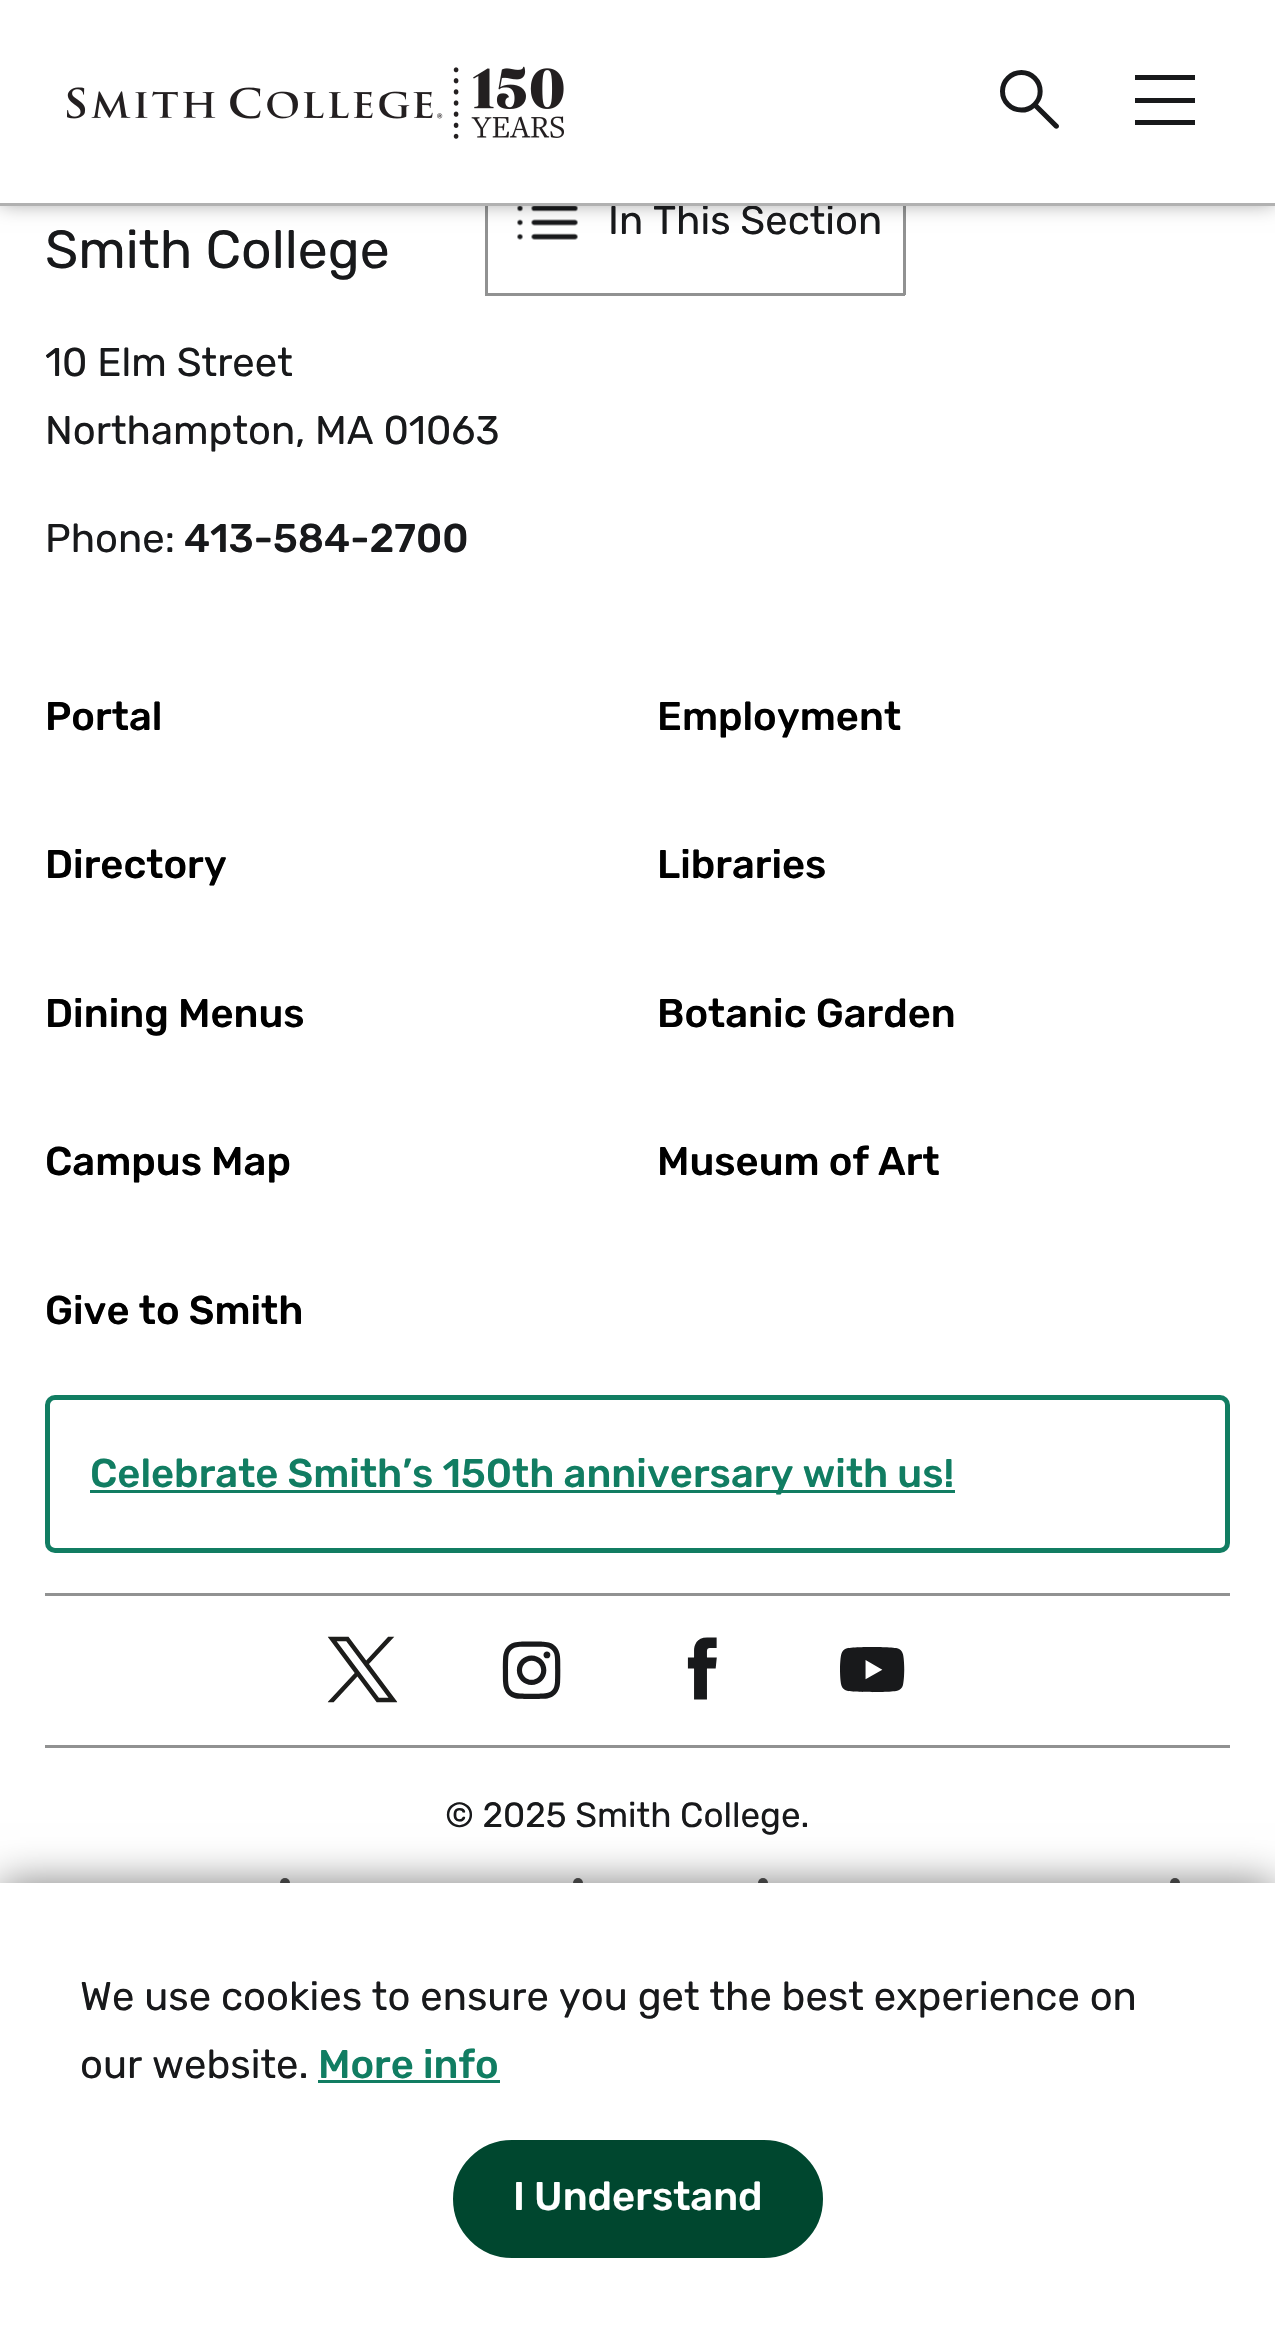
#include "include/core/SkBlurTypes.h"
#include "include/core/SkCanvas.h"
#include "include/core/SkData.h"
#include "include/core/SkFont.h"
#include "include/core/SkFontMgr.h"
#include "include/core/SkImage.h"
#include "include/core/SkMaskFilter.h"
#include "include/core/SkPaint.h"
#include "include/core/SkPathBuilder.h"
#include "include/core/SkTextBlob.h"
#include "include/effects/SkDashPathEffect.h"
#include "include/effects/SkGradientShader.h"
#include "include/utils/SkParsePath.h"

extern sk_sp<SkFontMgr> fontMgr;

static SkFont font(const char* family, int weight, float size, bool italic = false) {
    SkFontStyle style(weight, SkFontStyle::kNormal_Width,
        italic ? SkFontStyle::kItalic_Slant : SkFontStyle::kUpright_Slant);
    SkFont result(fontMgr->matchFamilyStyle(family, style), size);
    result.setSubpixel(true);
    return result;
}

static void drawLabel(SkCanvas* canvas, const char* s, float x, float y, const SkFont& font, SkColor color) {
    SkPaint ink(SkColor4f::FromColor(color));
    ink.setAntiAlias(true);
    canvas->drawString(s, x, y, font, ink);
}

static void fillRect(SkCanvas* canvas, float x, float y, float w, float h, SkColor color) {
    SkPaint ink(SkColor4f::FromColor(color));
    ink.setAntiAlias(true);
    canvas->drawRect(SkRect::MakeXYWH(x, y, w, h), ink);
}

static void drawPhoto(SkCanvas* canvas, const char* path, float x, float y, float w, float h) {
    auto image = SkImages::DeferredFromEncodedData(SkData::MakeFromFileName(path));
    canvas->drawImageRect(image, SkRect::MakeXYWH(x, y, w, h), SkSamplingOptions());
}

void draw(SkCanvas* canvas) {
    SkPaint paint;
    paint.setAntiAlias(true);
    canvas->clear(0xFFFFFFFF);
    fillRect(canvas, 903, 206, 3, 89, 0xFF919292);
    fillRect(canvas, 485, 293, 420, 3, 0xFF919292);
    fillRect(canvas, 485, 206, 3, 89, 0xFF919292);
    drawPhoto(canvas, "assets/img3.png", 517, 206, 61, 34);
    paint.setColor(0x66000000);
    paint.setMaskFilter(SkMaskFilter::MakeBlur(kNormal_SkBlurStyle, 10));
    canvas->drawRect(SkRect::MakeXYWH(0, 0, 1275, 203), paint);
    paint.setMaskFilter(nullptr);
    fillRect(canvas, 0, 0, 1275, 203, 0xFFFFFFFF);
    drawPhoto(canvas, "assets/img1.png", 67, 66, 497, 73);
    drawPhoto(canvas, "assets/img2.png", 1000, 70, 59, 59);
    fillRect(canvas, 1135, 75, 60, 5, 0xFF18191B);
    fillRect(canvas, 1135, 98, 60, 5, 0xFF18191B);
    fillRect(canvas, 1135, 120, 60, 5, 0xFF18191B);
    SkFont font1 = font("Rubik", 400, 40);
    drawLabel(canvas, "In This Section", 608, 234, font1, 0xFF18191B);
    fillRect(canvas, 0, 203, 1275, 3, 0xFFB1B1B1);
    SkFont font2 = font("Rubik", 400, 53.5f);
    drawLabel(canvas, "Smith College", 45, 268, font2, 0xFF18191B);
    drawLabel(canvas, "10 Elm Street", 45, 376, font1, 0xFF18191B);
    drawLabel(canvas, "Northampton, MA 01063", 45, 444, font1, 0xFF18191B);
    drawLabel(canvas, "Phone:", 45, 552, font1, 0xFF18191B);
    SkFont font3 = font("Rubik", 500, 40);
    drawLabel(canvas, "413-584-2700", 184, 552, font3, 0xFF18191B);
    drawLabel(canvas, "Portal", 45, 730, font3, 0xFF000000);
    drawLabel(canvas, "Employment", 657, 730, font3, 0xFF000000);
    drawLabel(canvas, "Directory", 45, 878, font3, 0xFF000000);
    drawLabel(canvas, "Libraries", 657, 878, font3, 0xFF000000);
    drawLabel(canvas, "Dining Menus", 45, 1027, font3, 0xFF000000);
    drawLabel(canvas, "Botanic Garden", 657, 1027, font3, 0xFF000000);
    drawLabel(canvas, "Campus Map", 45, 1175, font3, 0xFF000000);
    drawLabel(canvas, "Museum of Art", 657, 1175, font3, 0xFF000000);
    drawLabel(canvas, "Give to Smith", 45, 1324, font3, 0xFF000000);
    paint.setStroke(true);
    paint.setStrokeWidth(5);
    paint.setColor(0xFF117D62);
    canvas->drawRoundRect(SkRect::MakeXYWH(47.5f, 1397.5f, 1180, 153), 7.5f, 7.5f, paint);
    fillRect(canvas, 90, 1490, 865, 3, 0xFF117D62);
    drawLabel(canvas, "Celebrate Smith’s 150th anniversary with us!", 90, 1487, font3, 0xFF117D62);
    fillRect(canvas, 45, 1593, 1185, 3, 0xFF919292);
    fillRect(canvas, 45, 1745, 1185, 3, 0xFF919292);
    drawPhoto(canvas, "assets/img4.png", 327, 1636, 71, 67);
    drawPhoto(canvas, "assets/img5.png", 502, 1641, 59, 58);
    drawPhoto(canvas, "assets/img6.png", 687, 1637, 30, 63);
    drawPhoto(canvas, "assets/img7.png", 840, 1647, 65, 46);
    SkFont font4 = font("Rubik", 400, 35);
    drawLabel(canvas, "© 2025 Smith College.", 445, 1827, font4, 0xFF18191B);
    paint.setStroke(false);
    paint.setColor(0xFF535353);
    canvas->drawCircle(285, 1883, 5, paint);
    canvas->drawCircle(578, 1883, 5, paint);
    canvas->drawCircle(763, 1883, 5, paint);
    canvas->drawCircle(1175, 1883, 5, paint);
    paint.setColor(0x80000000);
    paint.setMaskFilter(SkMaskFilter::MakeBlur(kNormal_SkBlurStyle, 20));
    canvas->drawRect(SkRect::MakeXYWH(0, 1883, 1275, 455), paint);
    paint.setMaskFilter(nullptr);
    fillRect(canvas, 0, 1883, 1275, 453, 0xFFFFFFFF);
    drawLabel(canvas, "We use cookies to ensure you get the best experience on", 80, 2010, font1, 0xFF18191B);
    drawLabel(canvas, "our website.", 80, 2078, font1, 0xFF18191B);
    drawLabel(canvas, "More info", 318, 2078, font3, 0xFF117D62);
    fillRect(canvas, 318, 2080, 182, 3, 0xFF117D62);
    paint.setColor(0xFF00472F);
    canvas->drawRoundRect(SkRect::MakeXYWH(455.5f, 2142.5f, 365, 113), 56.5f, 56.5f, paint);
    paint.setStroke(true);
    canvas->drawRoundRect(SkRect::MakeXYWH(455.5f, 2142.5f, 365, 113), 56.5f, 56.5f, paint);
    drawLabel(canvas, "I Understand", 513, 2210, font3, 0xFFFFFFFF);
}
